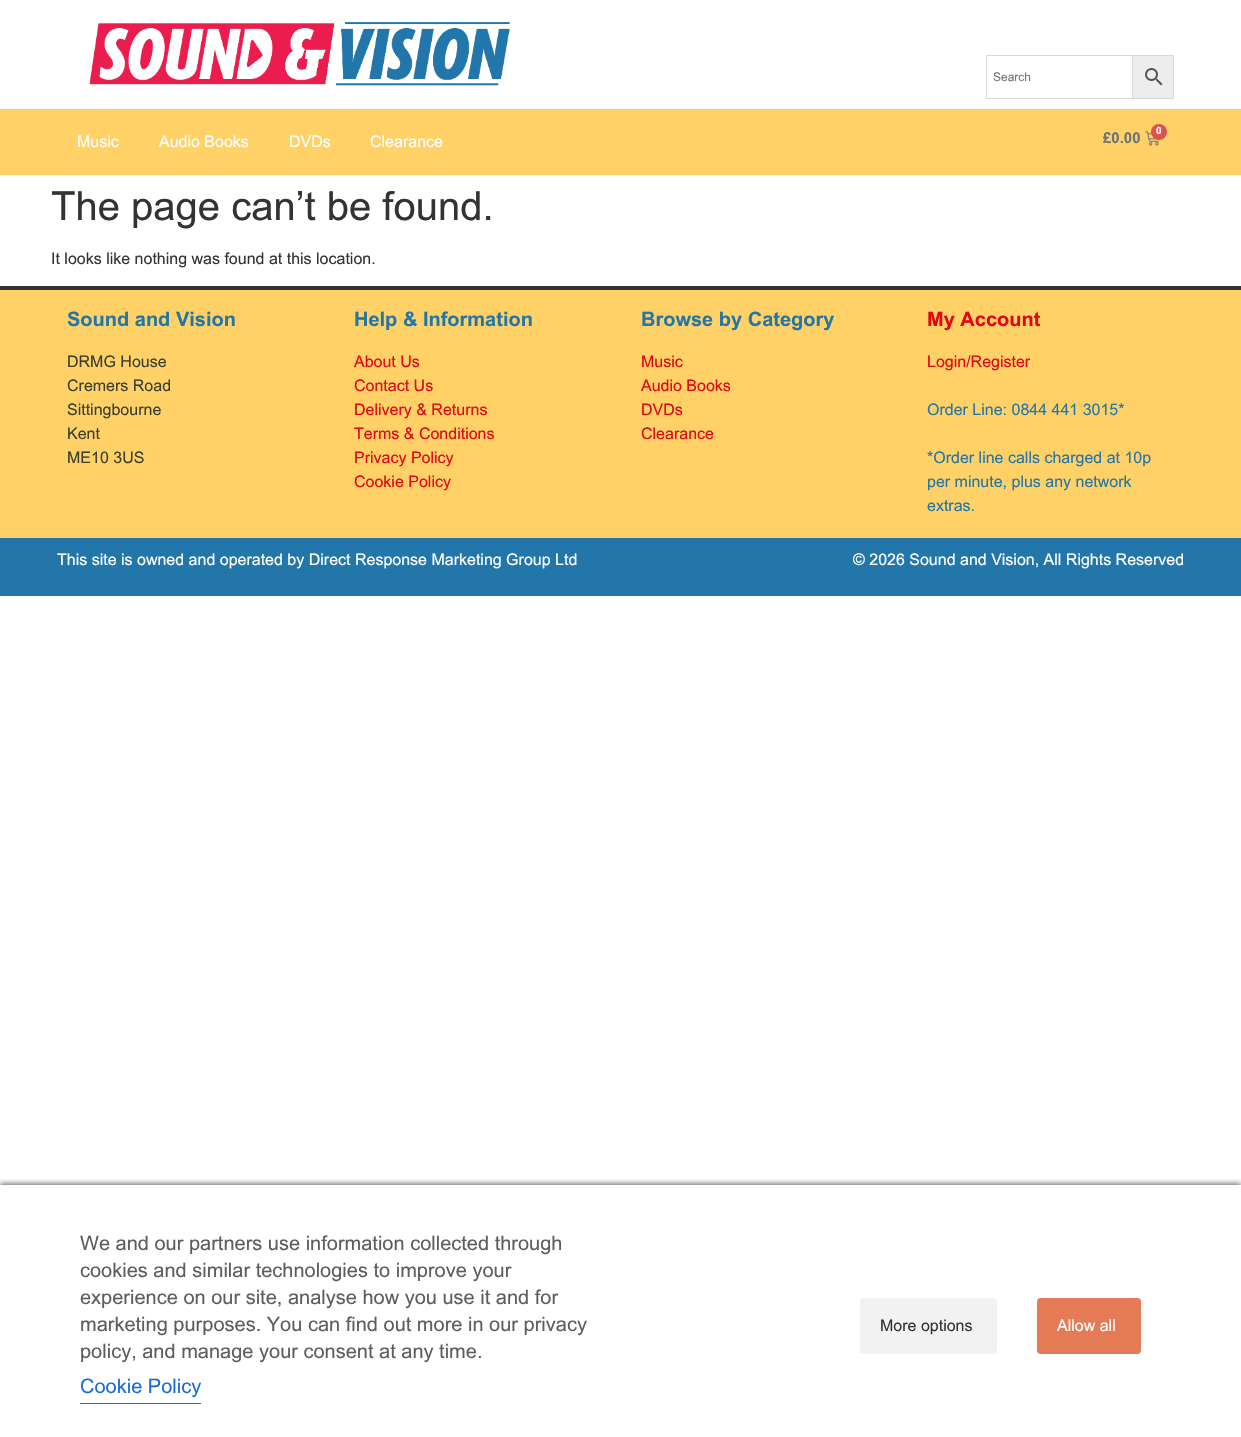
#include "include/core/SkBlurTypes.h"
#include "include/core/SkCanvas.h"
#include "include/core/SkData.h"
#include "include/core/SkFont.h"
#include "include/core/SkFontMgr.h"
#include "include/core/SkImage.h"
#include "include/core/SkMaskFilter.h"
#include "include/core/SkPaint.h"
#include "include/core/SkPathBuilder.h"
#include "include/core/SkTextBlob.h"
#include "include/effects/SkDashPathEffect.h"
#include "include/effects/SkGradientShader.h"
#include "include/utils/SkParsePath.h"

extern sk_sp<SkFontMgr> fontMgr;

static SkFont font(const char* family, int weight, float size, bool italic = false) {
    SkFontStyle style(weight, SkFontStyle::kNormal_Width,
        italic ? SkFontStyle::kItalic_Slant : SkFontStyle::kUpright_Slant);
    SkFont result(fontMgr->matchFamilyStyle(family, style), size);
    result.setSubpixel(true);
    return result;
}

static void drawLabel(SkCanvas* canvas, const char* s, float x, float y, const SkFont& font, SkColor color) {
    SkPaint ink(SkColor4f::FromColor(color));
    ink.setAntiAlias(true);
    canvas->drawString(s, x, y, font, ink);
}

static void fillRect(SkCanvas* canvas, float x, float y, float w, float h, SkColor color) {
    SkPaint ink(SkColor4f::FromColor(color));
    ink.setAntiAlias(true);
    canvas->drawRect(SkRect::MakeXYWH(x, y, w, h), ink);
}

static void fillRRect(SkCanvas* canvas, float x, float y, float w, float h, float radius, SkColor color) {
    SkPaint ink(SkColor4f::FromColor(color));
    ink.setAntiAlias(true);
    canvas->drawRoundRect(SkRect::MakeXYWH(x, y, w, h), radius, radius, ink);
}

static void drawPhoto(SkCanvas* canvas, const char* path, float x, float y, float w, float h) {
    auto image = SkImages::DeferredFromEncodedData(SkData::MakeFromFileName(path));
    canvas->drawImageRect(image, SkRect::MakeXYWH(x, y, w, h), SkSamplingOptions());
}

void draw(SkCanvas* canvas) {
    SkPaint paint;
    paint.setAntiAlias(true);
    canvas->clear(0xFFFFFFFF);
    drawPhoto(canvas, "assets/img1.png", 89, 21, 421, 65);
    paint.setColor(0xFFEDEDED);
    canvas->drawRect(SkRect::MakeXYWH(1132.5f, 55.5f, 41, 43), paint);
    paint.setStroke(true);
    paint.setStrokeWidth(1);
    paint.setColor(0xFFD8D8D8);
    canvas->drawRect(SkRect::MakeXYWH(1132.5f, 55.5f, 41, 43), paint);
    canvas->drawRect(SkRect::MakeXYWH(986.5f, 55.5f, 146, 43), paint);
    SkFont font1 = font("Arial", 400, 12);
    drawLabel(canvas, "Search", 993, 81, font1, 0xFF757575);
    drawPhoto(canvas, "assets/img2.png", 1145, 68, 18, 18);
    fillRect(canvas, 0, 109, 1241, 66, 0xFFFFD166);
    SkFont font2 = font("Arial", 400, 16);
    drawLabel(canvas, "Music", 77, 147, font2, 0xFFFFFFFF);
    drawLabel(canvas, "Audio Books", 159, 147, font2, 0xFFFFFFFF);
    drawLabel(canvas, "DVDs", 289, 147, font2, 0xFFFFFFFF);
    drawLabel(canvas, "Clearance", 370, 147, font2, 0xFFFFFFFF);
    drawPhoto(canvas, "assets/img3.png", 1145, 131, 14, 15);
    paint.setStroke(false);
    paint.setColor(0xFFD9534F);
    canvas->drawCircle(1159, 132, 8, paint);
    SkFont font3 = font("Arial", 700, 10);
    drawLabel(canvas, "0", 1156, 134, font3, 0xFFFFFFFF);
    SkFont font4 = font("Arial", 700, 15);
    drawLabel(canvas, "£0.00", 1103, 143, font4, 0xFF69727D);
    SkFont font5 = font("Arial", 400, 40);
    drawLabel(canvas, "The page can’t be found.", 51, 220, font5, 0xFF333333);
    drawLabel(canvas, "It looks like nothing was found at this location.", 51, 264, font2, 0xFF333333);
    fillRect(canvas, 0, 290, 1241, 248, 0xFFFFD166);
    fillRect(canvas, 0, 286, 1241, 4, 0xFF333333);
    SkFont font6 = font("Arial", 700, 20);
    drawLabel(canvas, "Sound and Vision", 67, 326, font6, 0xFF2276AA);
    drawLabel(canvas, "DRMG House", 67, 367, font2, 0xFF394032);
    drawLabel(canvas, "Cremers Road", 67, 391, font2, 0xFF394032);
    drawLabel(canvas, "Sittingbourne", 67, 415, font2, 0xFF394032);
    drawLabel(canvas, "Kent", 67, 439, font2, 0xFF394032);
    drawLabel(canvas, "ME10 3US", 67, 463, font2, 0xFF394032);
    drawLabel(canvas, "Help & Information", 354, 326, font6, 0xFF2276AA);
    drawLabel(canvas, "About Us", 354, 367, font2, 0xFFE20612);
    drawLabel(canvas, "Contact Us", 354, 391, font2, 0xFFE20612);
    drawLabel(canvas, "Delivery & Returns", 354, 415, font2, 0xFFE20612);
    drawLabel(canvas, "Terms & Conditions", 354, 439, font2, 0xFFE20612);
    drawLabel(canvas, "Privacy Policy", 354, 463, font2, 0xFFE20612);
    drawLabel(canvas, "Cookie Policy", 354, 487, font2, 0xFFE20612);
    drawLabel(canvas, "Browse by Category", 641, 326, font6, 0xFF2276AA);
    drawLabel(canvas, "Music", 641, 367, font2, 0xFFE20612);
    drawLabel(canvas, "Audio Books", 641, 391, font2, 0xFFE20612);
    drawLabel(canvas, "DVDs", 641, 415, font2, 0xFFE20612);
    drawLabel(canvas, "Clearance", 641, 439, font2, 0xFFE20612);
    drawLabel(canvas, "My Account", 927, 326, font6, 0xFFE20612);
    drawLabel(canvas, "Login/Register", 927, 367, font2, 0xFFE20612);
    drawLabel(canvas, "Order Line: 0844 441 3015*", 927, 415, font2, 0xFF2276AA);
    drawLabel(canvas, "*Order line calls charged at 10p", 927, 463, font2, 0xFF2276AA);
    drawLabel(canvas, "per minute, plus any network", 927, 487, font2, 0xFF2276AA);
    drawLabel(canvas, "extras.", 927, 511, font2, 0xFF2276AA);
    fillRect(canvas, 0, 538, 1241, 58, 0xFF2276AA);
    drawLabel(canvas, "This site is owned and operated by Direct Response Marketing Group Ltd", 57, 565, font2, 0xFFFFFFFF);
    drawLabel(canvas, "© 2026 Sound and Vision, All Rights Reserved", 853, 565, font2, 0xFFFFFFFF);
    canvas->save();
    canvas->clipRect(SkRect::MakeXYWH(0, 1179, 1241, 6));
    paint.setColor(0x80000000);
    paint.setMaskFilter(SkMaskFilter::MakeBlur(kNormal_SkBlurStyle, 2.5f));
    canvas->drawRect(SkRect::MakeXYWH(0, 1183, 1241, 252), paint);
    paint.setMaskFilter(nullptr);
    canvas->restore();
    SkFont font7 = font("Arial", 400, 20);
    drawLabel(canvas, "We and our partners use information collected through", 80, 1250, font7, 0xFF5D5D5D);
    drawLabel(canvas, "cookies and similar technologies to improve your", 80, 1277, font7, 0xFF5D5D5D);
    drawLabel(canvas, "experience on our site, analyse how you use it and for", 80, 1304, font7, 0xFF5D5D5D);
    drawLabel(canvas, "marketing purposes. You can find out more in our privacy", 80, 1331, font7, 0xFF5D5D5D);
    drawLabel(canvas, "policy, and manage your consent at any time.", 80, 1358, font7, 0xFF5D5D5D);
    drawLabel(canvas, "Cookie Policy", 80, 1393, font7, 0xFF1A6BD7);
    fillRect(canvas, 80, 1403, 121, 1, 0xFF1A6BD7);
    fillRRect(canvas, 860, 1298, 137, 56, 4, 0xFFF2F2F2);
    drawLabel(canvas, "More options", 880, 1331, font2, 0xFF333333);
    fillRRect(canvas, 1037, 1298, 104, 56, 4, 0xFFE47A56);
    drawLabel(canvas, "Allow all", 1057, 1331, font2, 0xFFFFFFFF);
}
